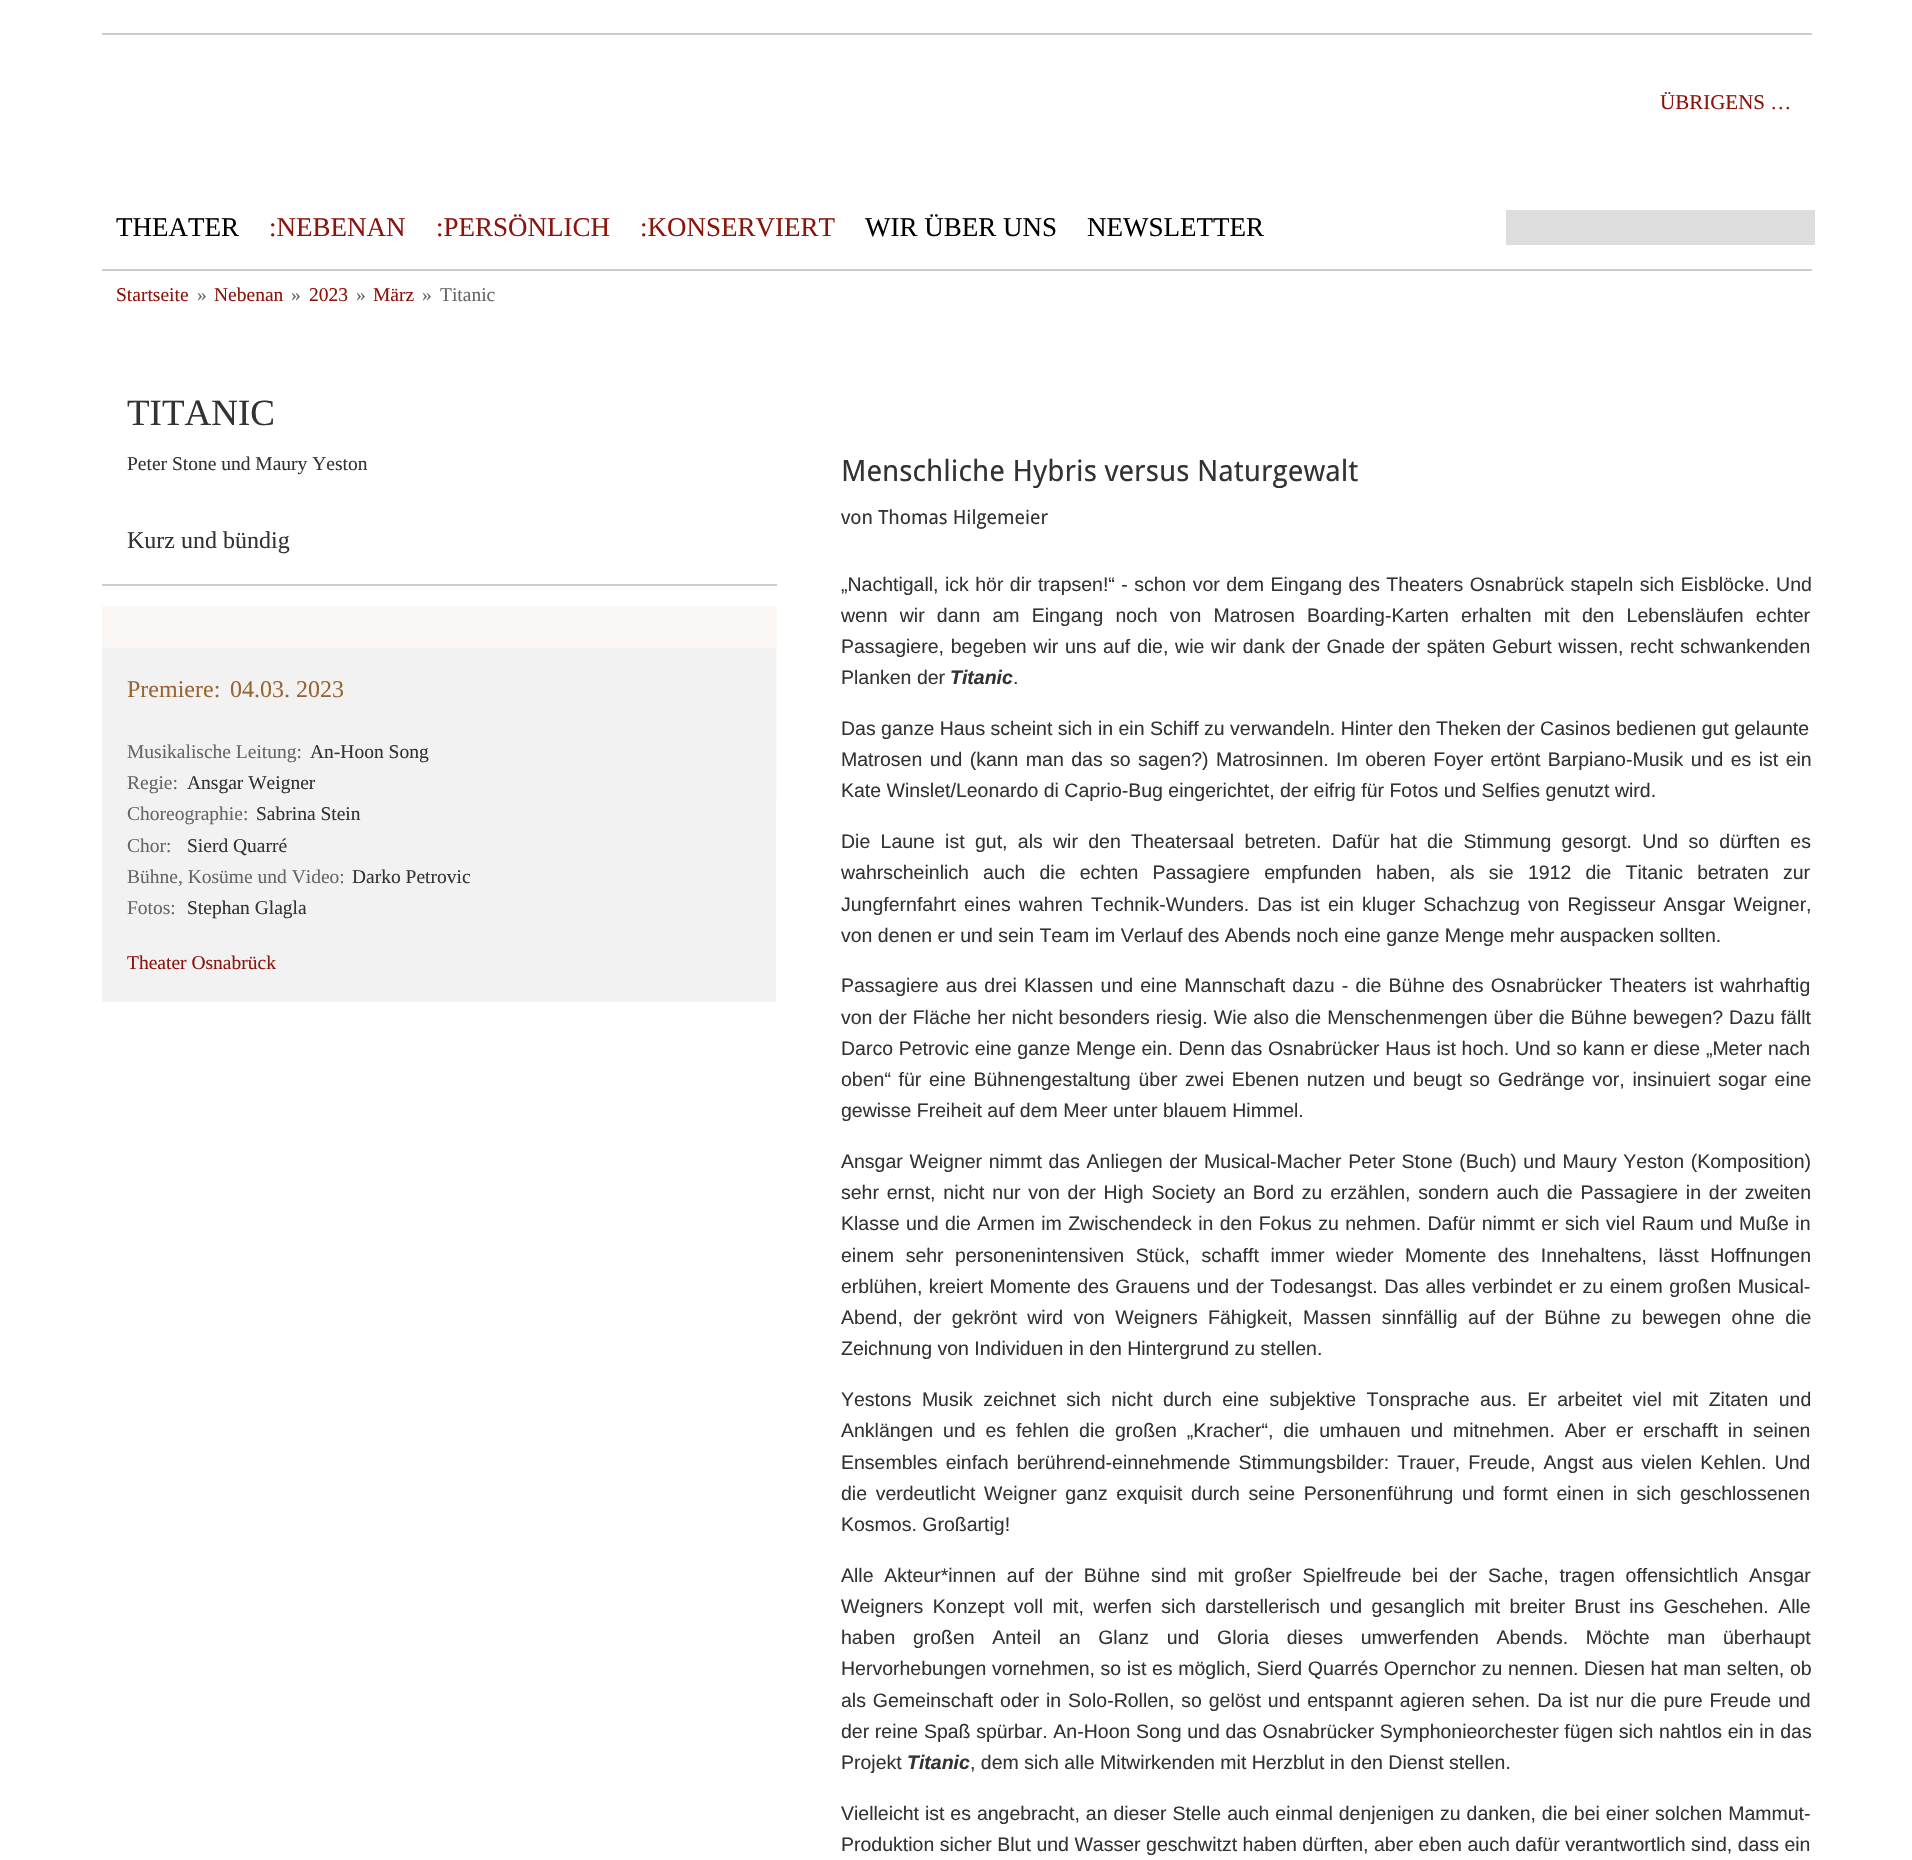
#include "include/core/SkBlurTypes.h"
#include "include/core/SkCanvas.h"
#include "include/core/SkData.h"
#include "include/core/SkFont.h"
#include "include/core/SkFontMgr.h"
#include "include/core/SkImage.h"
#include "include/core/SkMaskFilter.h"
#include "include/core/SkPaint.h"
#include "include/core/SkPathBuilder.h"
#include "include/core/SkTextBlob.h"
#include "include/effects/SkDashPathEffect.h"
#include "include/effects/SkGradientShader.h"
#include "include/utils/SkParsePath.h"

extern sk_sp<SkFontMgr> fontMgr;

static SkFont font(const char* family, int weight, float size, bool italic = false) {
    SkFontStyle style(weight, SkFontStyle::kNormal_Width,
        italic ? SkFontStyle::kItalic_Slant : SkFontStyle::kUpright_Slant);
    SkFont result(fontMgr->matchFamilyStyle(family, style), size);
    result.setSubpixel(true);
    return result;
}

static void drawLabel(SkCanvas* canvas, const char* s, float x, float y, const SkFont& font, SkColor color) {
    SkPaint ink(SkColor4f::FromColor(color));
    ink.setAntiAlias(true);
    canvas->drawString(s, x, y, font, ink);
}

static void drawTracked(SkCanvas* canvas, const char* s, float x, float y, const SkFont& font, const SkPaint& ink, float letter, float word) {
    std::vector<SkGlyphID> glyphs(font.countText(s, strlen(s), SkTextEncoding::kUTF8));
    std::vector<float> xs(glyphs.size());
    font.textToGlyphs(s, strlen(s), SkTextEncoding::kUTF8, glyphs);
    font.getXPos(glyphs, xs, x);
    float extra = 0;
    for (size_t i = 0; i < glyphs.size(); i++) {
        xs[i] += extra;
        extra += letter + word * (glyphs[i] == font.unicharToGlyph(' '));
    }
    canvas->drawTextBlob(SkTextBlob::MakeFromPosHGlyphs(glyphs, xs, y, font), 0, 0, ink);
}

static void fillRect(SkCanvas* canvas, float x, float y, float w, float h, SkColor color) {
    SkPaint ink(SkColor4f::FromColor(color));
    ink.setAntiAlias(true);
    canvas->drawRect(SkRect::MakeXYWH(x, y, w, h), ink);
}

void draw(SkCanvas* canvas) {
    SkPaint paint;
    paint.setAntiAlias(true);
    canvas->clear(0xFFFFFFFF);
    fillRect(canvas, 102, 33, 1710, 2, 0xFFCCCCCC);
    SkFont font1 = font("Liberation Serif", 400, 21);
    drawLabel(canvas, "ÜBRIGENS …", 1660, 109, font1, 0xFF8C140C);
    fillRect(canvas, 102, 269, 1710, 2, 0xFFCCCCCC);
    SkFont font2 = font("Liberation Serif", 400, 27);
    drawLabel(canvas, "THEATER", 116, 236, font2, 0xFF000000);
    drawLabel(canvas, ":NEBENAN", 269, 236, font2, 0xFF8C140C);
    drawLabel(canvas, ":PERSÖNLICH", 436, 236, font2, 0xFF8C140C);
    drawLabel(canvas, ":KONSERVIERT", 640, 236, font2, 0xFF8C140C);
    drawLabel(canvas, "WIR ÜBER UNS", 865, 236, font2, 0xFF000000);
    drawLabel(canvas, "NEWSLETTER", 1087, 236, font2, 0xFF000000);
    fillRect(canvas, 1506, 210, 309, 35, 0xFFDDDDDD);
    SkFont font3 = font("Liberation Serif", 400, 19.5f);
    drawLabel(canvas, "Startseite", 116, 301, font3, 0xFF8C140C);
    drawLabel(canvas, "»", 197, 301, font3, 0xFF666666);
    drawLabel(canvas, "Nebenan", 214, 301, font3, 0xFF8C140C);
    drawLabel(canvas, "»", 291, 301, font3, 0xFF666666);
    drawLabel(canvas, "2023", 309, 301, font3, 0xFF8C140C);
    drawLabel(canvas, "»", 356, 301, font3, 0xFF666666);
    drawLabel(canvas, "März", 373, 301, font3, 0xFF8C140C);
    drawLabel(canvas, "»", 422, 301, font3, 0xFF666666);
    drawLabel(canvas, "Titanic", 440, 301, font3, 0xFF666666);
    SkFont font4 = font("Liberation Serif", 400, 37);
    drawLabel(canvas, "TITANIC", 127, 425, font4, 0xFF333333);
    drawLabel(canvas, "Peter Stone und Maury Yeston", 127, 470, font3, 0xFF333333);
    fillRect(canvas, 102, 606, 675, 194, 0xFFFAF7F5);
    fillRect(canvas, 102, 648, 674, 354, 0xFFF2F2F2);
    SkFont font5 = font("Liberation Serif", 400, 24);
    drawLabel(canvas, "Premiere:", 127, 697, font5, 0xFF996633);
    drawLabel(canvas, "04.03. 2023", 230, 697, font5, 0xFF996633);
    drawLabel(canvas, "Musikalische Leitung:", 127, 758, font3, 0xFF666666);
    drawLabel(canvas, "An-Hoon Song", 310, 758, font3, 0xFF333333);
    drawLabel(canvas, "Regie:", 127, 789, font3, 0xFF666666);
    drawLabel(canvas, "Ansgar Weigner", 187, 789, font3, 0xFF333333);
    drawLabel(canvas, "Choreographie:", 127, 820, font3, 0xFF666666);
    drawLabel(canvas, "Sabrina Stein", 256, 820, font3, 0xFF333333);
    drawLabel(canvas, "Chor:", 127, 852, font3, 0xFF666666);
    drawLabel(canvas, "Sierd Quarré", 187, 852, font3, 0xFF333333);
    drawLabel(canvas, "Bühne, Kosüme und Video:", 127, 883, font3, 0xFF666666);
    drawLabel(canvas, "Darko Petrovic", 352, 883, font3, 0xFF333333);
    drawLabel(canvas, "Fotos:", 127, 914, font3, 0xFF666666);
    drawLabel(canvas, "Stephan Glagla", 187, 914, font3, 0xFF333333);
    drawLabel(canvas, "Theater Osnabrück", 127, 969, font3, 0xFF8C140C);
    fillRect(canvas, 102, 584, 675, 2, 0xFFCCCCCC);
    drawLabel(canvas, "Kurz und bündig", 127, 548, font5, 0xFF333333);
    SkFont font6 = font("Droid Sans", 400, 29.25f);
    drawLabel(canvas, "Menschliche Hybris versus Naturgewalt", 841, 481, font6, 0xFF333333);
    SkFont font7 = font("Droid Sans", 400, 19.5f);
    drawLabel(canvas, "von Thomas Hilgemeier", 841, 524, font7, 0xFF333333);
    SkFont font8 = font("Liberation Sans", 400, 19.5f);
    paint.setColor(0xFF333333);
    drawTracked(canvas, "„Nachtigall, ick hör dir trapsen!“ - schon vor dem Eingang des Theaters Osnabrück stapeln sich Eisblöcke. Und", 841, 591, font8, paint, 0, 1);
    drawTracked(canvas, "wenn wir dann am Eingang noch von Matrosen Boarding-Karten erhalten mit den Lebensläufen echter", 841, 622, font8, paint, 0, 6.75f);
    drawTracked(canvas, "Passagiere, begeben wir uns auf die, wie wir dank der Gnade der späten Geburt wissen, recht schwankenden", 841, 653, font8, paint, 0, 1.3f);
    drawLabel(canvas, "Planken der", 841, 684, font8, 0xFF333333);
    SkFont font9 = font("Liberation Sans", 700, 19.5f, true);
    drawLabel(canvas, "Titanic", 950, 684, font9, 0xFF333333);
    drawLabel(canvas, ".", 1013, 684, font8, 0xFF333333);
    drawLabel(canvas, "Das ganze Haus scheint sich in ein Schiff zu verwandeln. Hinter den Theken der Casinos bedienen gut gelaunte", 841, 735, font8, 0xFF333333);
    drawTracked(canvas, "Matrosen und (kann man das so sagen?) Matrosinnen. Im oberen Foyer ertönt Barpiano-Musik und es ist ein", 841, 766, font8, paint, 0, 2);
    drawLabel(canvas, "Kate Winslet/Leonardo di Caprio-Bug eingerichtet, der eifrig für Fotos und Selfies genutzt wird.", 841, 797, font8, 0xFF333333);
    drawTracked(canvas, "Die Laune ist gut, als wir den Theatersaal betreten. Dafür hat die Stimmung gesorgt. Und so dürften es", 841, 848, font8, paint, 0, 4.9f);
    drawTracked(canvas, "wahrscheinlich auch die echten Passagiere empfunden haben, als sie 1912 die Titanic betraten zur", 841, 879, font8, paint, 0, 8.75f);
    drawTracked(canvas, "Jungfernfahrt eines wahren Technik-Wunders. Das ist ein kluger Schachzug von Regisseur Ansgar Weigner,", 841, 911, font8, paint, 0, 2.75f);
    drawLabel(canvas, "von denen er und sein Team im Verlauf des Abends noch eine ganze Menge mehr auspacken sollten.", 841, 942, font8, 0xFF333333);
    drawTracked(canvas, "Passagiere aus drei Klassen und eine Mannschaft dazu - die Bühne des Osnabrücker Theaters ist wahrhaftig", 841, 992, font8, paint, 0, 1.75f);
    drawTracked(canvas, "von der Fläche her nicht besonders riesig. Wie also die Menschenmengen über die Bühne bewegen? Dazu fällt", 841, 1024, font8, paint, 0, 0.6f);
    drawTracked(canvas, "Darco Petrovic eine ganze Menge ein. Denn das Osnabrücker Haus ist hoch. Und so kann er diese „Meter nach", 841, 1055, font8, paint, 0, 0.25f);
    drawTracked(canvas, "oben“ für eine Bühnengestaltung über zwei Ebenen nutzen und beugt so Gedränge vor, insinuiert sogar eine", 841, 1086, font8, paint, 0, 2.25f);
    drawLabel(canvas, "gewisse Freiheit auf dem Meer unter blauem Himmel.", 841, 1117, font8, 0xFF333333);
    drawTracked(canvas, "Ansgar Weigner nimmt das Anliegen der Musical-Macher Peter Stone (Buch) und Maury Yeston (Komposition)", 841, 1168, font8, paint, 0, 1.25f);
    drawTracked(canvas, "sehr ernst, nicht nur von der High Society an Bord zu erzählen, sondern auch die Passagiere in der zweiten", 841, 1199, font8, paint, 0, 2.4f);
    drawTracked(canvas, "Klasse und die Armen im Zwischendeck in den Fokus zu nehmen. Dafür nimmt er sich viel Raum und Muße in", 841, 1230, font8, paint, 0, 1);
    drawTracked(canvas, "einem sehr personenintensiven Stück, schafft immer wieder Momente des Innehaltens, lässt Hoffnungen", 841, 1262, font8, paint, 0, 6.1f);
    drawTracked(canvas, "erblühen, kreiert Momente des Grauens und der Todesangst. Das alles verbindet er zu einem großen Musical-", 841, 1293, font8, paint, 0, 1.1f);
    drawTracked(canvas, "Abend, der gekrönt wird von Weigners Fähigkeit, Massen sinnfällig auf der Bühne zu bewegen ohne die", 841, 1324, font8, paint, 0, 5);
    drawLabel(canvas, "Zeichnung von Individuen in den Hintergrund zu stellen.", 841, 1355, font8, 0xFF333333);
    drawTracked(canvas, "Yestons Musik zeichnet sich nicht durch eine subjektive Tonsprache aus. Er arbeitet viel mit Zitaten und", 841, 1406, font8, paint, 0, 5);
    drawTracked(canvas, "Anklängen und es fehlen die großen „Kracher“, die umhauen und mitnehmen. Aber er erschafft in seinen", 841, 1437, font8, paint, 0, 4.5f);
    drawTracked(canvas, "Ensembles einfach berührend-einnehmende Stimmungsbilder: Trauer, Freude, Angst aus vielen Kehlen. Und", 841, 1469, font8, paint, 0, 2.75f);
    drawTracked(canvas, "die verdeutlicht Weigner ganz exquisit durch seine Personenführung und formt einen in sich geschlossenen", 841, 1500, font8, paint, 0, 3.25f);
    drawLabel(canvas, "Kosmos. Großartig!", 841, 1531, font8, 0xFF333333);
    drawTracked(canvas, "Alle Akteur*innen auf der Bühne sind mit großer Spielfreude bei der Sache, tragen offensichtlich Ansgar", 841, 1582, font8, paint, 0, 5.4f);
    drawTracked(canvas, "Weigners Konzept voll mit, werfen sich darstellerisch und gesanglich mit breiter Brust ins Geschehen. Alle", 841, 1613, font8, paint, 0, 4);
    drawTracked(canvas, "haben großen Anteil an Glanz und Gloria dieses umwerfenden Abends. Möchte man überhaupt", 841, 1644, font8, paint, 0, 12.25f);
    drawTracked(canvas, "Hervorhebungen vornehmen, so ist es möglich, Sierd Quarrés Opernchor zu nennen. Diesen hat man selten, ob", 841, 1675, font8, paint, 0, 0.25f);
    drawTracked(canvas, "als Gemeinschaft oder in Solo-Rollen, so gelöst und entspannt agieren sehen. Da ist nur die pure Freude und", 841, 1707, font8, paint, 0, 1.5f);
    drawTracked(canvas, "der reine Spaß spürbar. An-Hoon Song und das Osnabrücker Symphonieorchester fügen sich nahtlos ein in das", 841, 1738, font8, paint, 0, 0.25f);
    drawLabel(canvas, "Projekt", 841, 1769, font8, 0xFF333333);
    drawLabel(canvas, "Titanic", 907, 1769, font9, 0xFF333333);
    drawLabel(canvas, ", dem sich alle Mitwirkenden mit Herzblut in den Dienst stellen.", 970, 1769, font8, 0xFF333333);
    drawTracked(canvas, "Vielleicht ist es angebracht, an dieser Stelle auch einmal denjenigen zu danken, die bei einer solchen Mammut-", 841, 1820, font8, paint, 0, 0.5f);
    drawTracked(canvas, "Produktion sicher Blut und Wasser geschwitzt haben dürften, aber eben auch dafür verantwortlich sind, dass ein", 841, 1851, font8, paint, 0, 0.1f);
}
